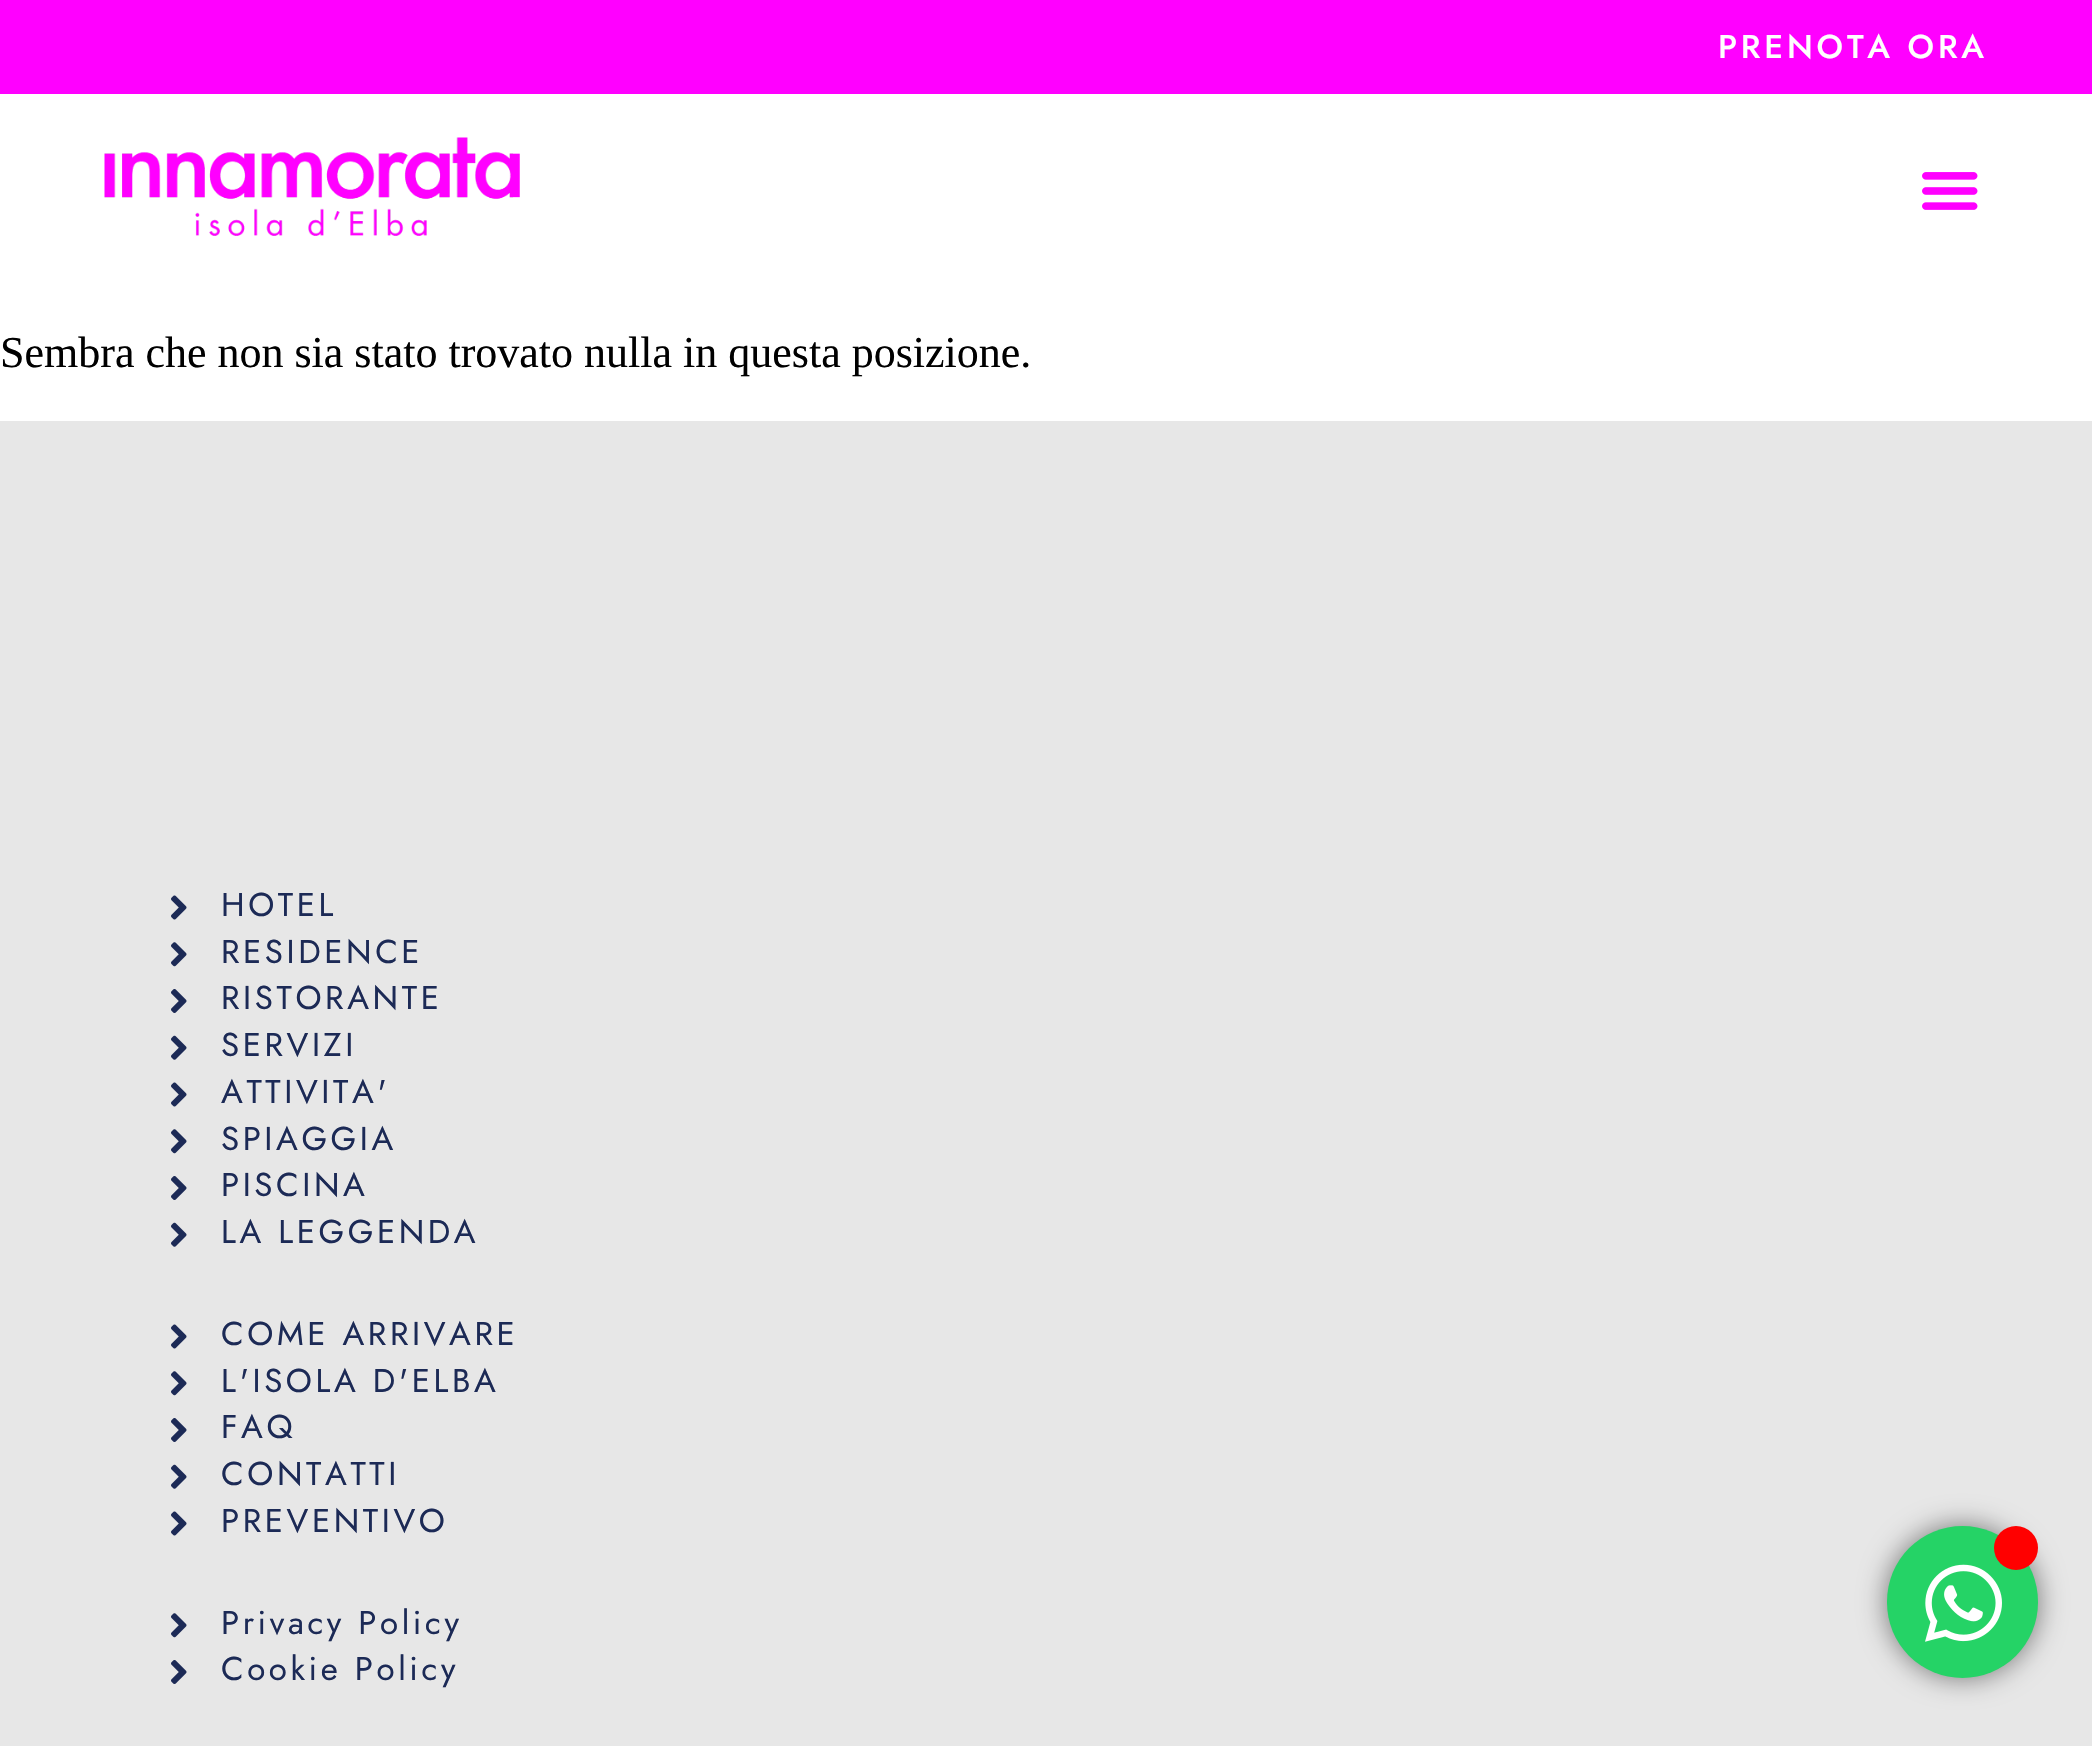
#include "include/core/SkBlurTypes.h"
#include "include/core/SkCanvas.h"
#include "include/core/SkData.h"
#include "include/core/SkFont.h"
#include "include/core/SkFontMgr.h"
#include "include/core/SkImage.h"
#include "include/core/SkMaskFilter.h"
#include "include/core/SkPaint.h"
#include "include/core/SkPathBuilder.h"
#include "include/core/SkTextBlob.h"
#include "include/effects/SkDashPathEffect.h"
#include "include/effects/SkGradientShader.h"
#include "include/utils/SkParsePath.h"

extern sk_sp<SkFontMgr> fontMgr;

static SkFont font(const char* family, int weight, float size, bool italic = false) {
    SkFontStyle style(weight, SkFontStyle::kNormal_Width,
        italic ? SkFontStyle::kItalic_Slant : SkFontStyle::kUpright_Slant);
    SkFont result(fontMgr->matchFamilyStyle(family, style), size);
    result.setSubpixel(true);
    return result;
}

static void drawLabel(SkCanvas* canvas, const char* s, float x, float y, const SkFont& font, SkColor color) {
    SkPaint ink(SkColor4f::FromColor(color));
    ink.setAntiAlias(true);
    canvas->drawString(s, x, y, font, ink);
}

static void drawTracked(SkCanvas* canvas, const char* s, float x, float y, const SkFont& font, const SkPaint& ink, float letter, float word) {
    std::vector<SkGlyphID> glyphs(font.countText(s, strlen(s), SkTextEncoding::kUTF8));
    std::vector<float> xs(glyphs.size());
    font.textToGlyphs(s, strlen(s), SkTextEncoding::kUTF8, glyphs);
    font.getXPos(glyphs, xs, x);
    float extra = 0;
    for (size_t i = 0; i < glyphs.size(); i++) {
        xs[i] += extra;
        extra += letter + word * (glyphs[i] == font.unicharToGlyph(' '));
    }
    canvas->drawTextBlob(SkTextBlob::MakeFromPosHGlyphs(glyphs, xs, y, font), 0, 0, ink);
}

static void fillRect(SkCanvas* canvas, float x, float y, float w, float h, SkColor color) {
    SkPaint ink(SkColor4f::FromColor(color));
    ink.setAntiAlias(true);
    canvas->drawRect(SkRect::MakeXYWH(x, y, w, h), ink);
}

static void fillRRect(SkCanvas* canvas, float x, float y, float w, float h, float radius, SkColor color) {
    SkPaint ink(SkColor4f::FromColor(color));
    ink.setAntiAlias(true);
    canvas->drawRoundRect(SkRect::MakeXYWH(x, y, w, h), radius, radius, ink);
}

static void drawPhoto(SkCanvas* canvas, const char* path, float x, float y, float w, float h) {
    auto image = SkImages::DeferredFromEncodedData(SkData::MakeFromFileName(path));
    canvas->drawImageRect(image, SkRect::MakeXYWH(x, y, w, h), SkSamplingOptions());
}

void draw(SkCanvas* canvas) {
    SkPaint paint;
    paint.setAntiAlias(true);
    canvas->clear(0xFFFFFFFF);
    fillRect(canvas, 0, 0, 2092, 94, 0xFFFF00FF);
    SkFont font1 = font("Jost", 500, 33);
    paint.setColor(0xFFFFFFFF);
    drawTracked(canvas, "PRENOTA ORA", 1718, 58, font1, paint, 3.8f, 0);
    drawPhoto(canvas, "assets/img1.png", 104, 137, 416, 99);
    drawPhoto(canvas, "assets/img2.png", 1922, 172, 56, 38);
    SkFont font2 = font("Liberation Serif", 400, 44);
    drawLabel(canvas, "Sembra che non sia stato trovato nulla in questa posizione.", 0, 367, font2, 0xFF000000);
    fillRect(canvas, 0, 421, 2092, 1325, 0xFFE7E7E7);
    drawPhoto(canvas, "assets/img3.png", 171, 895, 16, 25);
    SkFont font3 = font("Jost", 400, 33);
    paint.setColor(0xFF1C2A56);
    drawTracked(canvas, "HOTEL", 221, 916, font3, paint, 3.6f, 0);
    drawPhoto(canvas, "assets/img4.png", 171, 942, 16, 25);
    drawTracked(canvas, "RESIDENCE", 221, 963, font3, paint, 3.6f, 0);
    drawPhoto(canvas, "assets/img5.png", 171, 989, 16, 24);
    drawTracked(canvas, "RISTORANTE", 221, 1009, font3, paint, 3.6f, 0);
    drawPhoto(canvas, "assets/img6.png", 171, 1035, 16, 25);
    drawTracked(canvas, "SERVIZI", 221, 1056, font3, paint, 3.6f, 0);
    drawPhoto(canvas, "assets/img3.png", 171, 1082, 16, 25);
    drawTracked(canvas, "ATTIVITA'", 221, 1103, font3, paint, 3.6f, 0);
    drawPhoto(canvas, "assets/img4.png", 171, 1129, 16, 25);
    drawTracked(canvas, "SPIAGGIA", 221, 1150, font3, paint, 3.6f, 0);
    drawPhoto(canvas, "assets/img5.png", 171, 1176, 16, 24);
    drawTracked(canvas, "PISCINA", 221, 1196, font3, paint, 3.6f, 0);
    drawPhoto(canvas, "assets/img6.png", 171, 1222, 16, 25);
    drawTracked(canvas, "LA LEGGENDA", 221, 1243, font3, paint, 3.6f, 0);
    drawPhoto(canvas, "assets/img3.png", 171, 1324, 16, 25);
    drawTracked(canvas, "COME ARRIVARE", 221, 1345, font3, paint, 3.6f, 0);
    drawPhoto(canvas, "assets/img4.png", 171, 1371, 16, 25);
    drawTracked(canvas, "L'ISOLA D'ELBA", 221, 1392, font3, paint, 3.6f, 0);
    drawPhoto(canvas, "assets/img5.png", 171, 1418, 16, 24);
    drawTracked(canvas, "FAQ", 221, 1438, font3, paint, 3.6f, 0);
    drawPhoto(canvas, "assets/img6.png", 171, 1464, 16, 25);
    drawTracked(canvas, "CONTATTI", 221, 1485, font3, paint, 3.6f, 0);
    drawPhoto(canvas, "assets/img3.png", 171, 1511, 16, 25);
    drawTracked(canvas, "PREVENTIVO", 221, 1532, font3, paint, 3.6f, 0);
    drawPhoto(canvas, "assets/img4.png", 171, 1613, 16, 25);
    drawTracked(canvas, "Privacy Policy", 221, 1634, font3, paint, 3.6f, 0);
    drawPhoto(canvas, "assets/img5.png", 171, 1660, 16, 24);
    drawTracked(canvas, "Cookie Policy", 221, 1680, font3, paint, 3.6f, 0);
    paint.setColor(0x80000000);
    paint.setMaskFilter(SkMaskFilter::MakeBlur(kNormal_SkBlurStyle, 14));
    canvas->drawRoundRect(SkRect::MakeXYWH(1887, 1526, 151, 152), 75.5f, 75.5f, paint);
    paint.setMaskFilter(nullptr);
    fillRRect(canvas, 1887, 1526, 151, 152, 75.5f, 0xFF25D366);
    drawPhoto(canvas, "assets/img7.png", 1925, 1564, 77, 78);
    paint.setColor(0xFFFF0000);
    canvas->drawCircle(2016, 1548, 22, paint);
}
